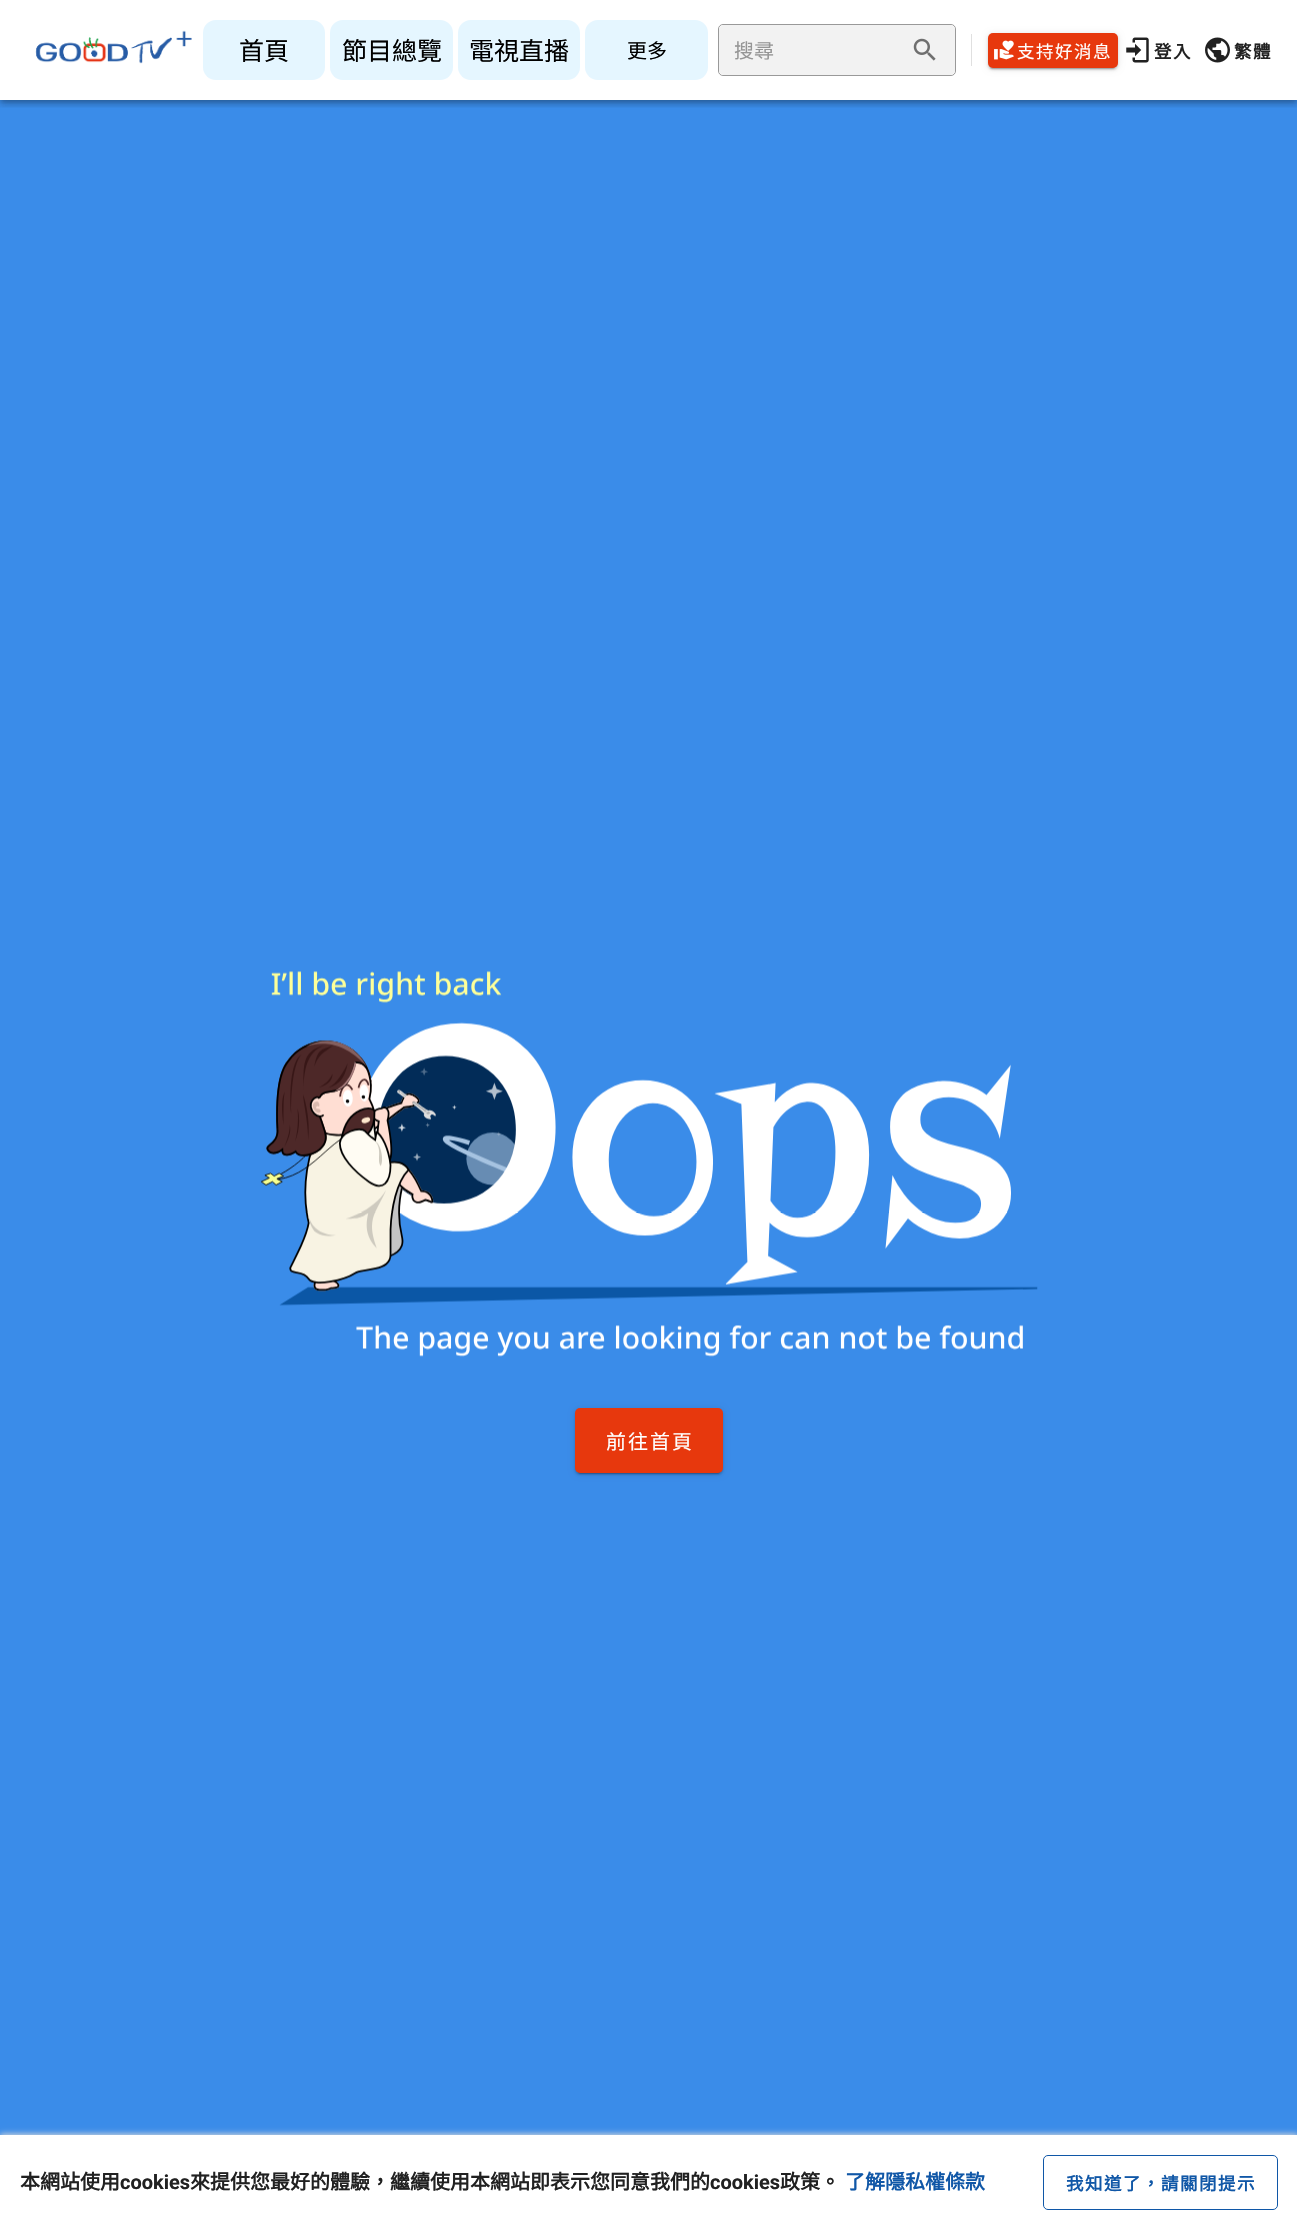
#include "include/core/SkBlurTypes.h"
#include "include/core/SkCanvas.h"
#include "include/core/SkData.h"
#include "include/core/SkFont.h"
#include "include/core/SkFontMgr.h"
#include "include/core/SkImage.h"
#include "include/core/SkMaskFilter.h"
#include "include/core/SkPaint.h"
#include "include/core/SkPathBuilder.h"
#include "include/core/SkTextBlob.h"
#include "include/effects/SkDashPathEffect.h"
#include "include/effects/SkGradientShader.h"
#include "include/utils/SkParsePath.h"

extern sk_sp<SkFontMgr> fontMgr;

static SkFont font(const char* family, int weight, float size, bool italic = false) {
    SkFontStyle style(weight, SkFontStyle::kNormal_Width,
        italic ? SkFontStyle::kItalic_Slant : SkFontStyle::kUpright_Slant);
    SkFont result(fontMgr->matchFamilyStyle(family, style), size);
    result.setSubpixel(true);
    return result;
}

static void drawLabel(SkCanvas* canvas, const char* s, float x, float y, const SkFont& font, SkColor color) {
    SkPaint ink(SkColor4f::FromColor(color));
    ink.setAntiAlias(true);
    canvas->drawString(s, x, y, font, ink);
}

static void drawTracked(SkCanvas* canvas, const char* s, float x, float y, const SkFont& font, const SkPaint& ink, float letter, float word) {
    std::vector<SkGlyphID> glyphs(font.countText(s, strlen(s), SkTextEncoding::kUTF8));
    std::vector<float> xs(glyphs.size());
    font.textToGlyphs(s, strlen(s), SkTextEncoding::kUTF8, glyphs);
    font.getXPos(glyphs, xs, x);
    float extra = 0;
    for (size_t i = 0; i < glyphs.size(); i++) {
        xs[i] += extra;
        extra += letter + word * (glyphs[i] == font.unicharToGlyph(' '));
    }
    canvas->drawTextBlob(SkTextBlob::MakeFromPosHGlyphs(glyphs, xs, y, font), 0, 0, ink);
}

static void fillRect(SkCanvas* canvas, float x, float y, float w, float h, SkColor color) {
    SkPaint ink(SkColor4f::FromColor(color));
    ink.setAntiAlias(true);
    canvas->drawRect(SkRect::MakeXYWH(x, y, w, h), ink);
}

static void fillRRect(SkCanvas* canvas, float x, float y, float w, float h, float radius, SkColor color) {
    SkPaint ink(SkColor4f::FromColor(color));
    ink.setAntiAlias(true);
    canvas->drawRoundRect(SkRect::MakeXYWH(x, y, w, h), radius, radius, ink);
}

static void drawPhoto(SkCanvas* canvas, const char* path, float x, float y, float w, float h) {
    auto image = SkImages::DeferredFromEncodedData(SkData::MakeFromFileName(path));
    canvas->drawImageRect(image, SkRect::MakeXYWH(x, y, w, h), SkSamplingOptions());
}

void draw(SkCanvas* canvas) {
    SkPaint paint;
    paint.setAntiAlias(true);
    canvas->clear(0xFFFFFFFF);
    fillRect(canvas, 0, 100, 1297, 2035, 0xFF3A8CE9);
    canvas->save();
    canvas->clipRect(SkRect::MakeXYWH(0, 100, 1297, 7));
    paint.setColor(0x1F000000);
    paint.setMaskFilter(SkMaskFilter::MakeBlur(kNormal_SkBlurStyle, 6));
    canvas->drawRect(SkRect::MakeXYWH(0, 1, 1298, 100), paint);
    paint.setMaskFilter(nullptr);
    canvas->restore();
    canvas->save();
    canvas->clipRect(SkRect::MakeXYWH(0, 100, 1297, 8));
    paint.setColor(0x24000000);
    paint.setMaskFilter(SkMaskFilter::MakeBlur(kNormal_SkBlurStyle, 3));
    canvas->drawRect(SkRect::MakeXYWH(0, 5, 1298, 100), paint);
    paint.setMaskFilter(nullptr);
    canvas->restore();
    canvas->save();
    canvas->clipRect(SkRect::MakeXYWH(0, 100, 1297, 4));
    paint.setColor(0x33000000);
    paint.setMaskFilter(SkMaskFilter::MakeBlur(kNormal_SkBlurStyle, 2.5f));
    canvas->drawRect(SkRect::MakeXYWH(1, 4, 1295, 97), paint);
    paint.setMaskFilter(nullptr);
    canvas->restore();
    drawPhoto(canvas, "assets/img1.png", 35, 30, 157, 34);
    fillRRect(canvas, 203, 20, 122, 60, 13, 0xFFE5F6FF);
    SkFont font1 = font("Noto Sans TC", 400, 25);
    drawLabel(canvas, "首頁", 239, 60, font1, 0xFF000000);
    fillRRect(canvas, 330, 20, 123, 60, 13, 0xFFE5F6FF);
    drawLabel(canvas, "節目總覽", 342, 60, font1, 0xFF000000);
    fillRRect(canvas, 458, 20, 122, 60, 13, 0xFFE5F6FF);
    drawLabel(canvas, "電視直播", 469, 60, font1, 0xFF000000);
    fillRRect(canvas, 585, 20, 123, 60, 13, 0xFFE5F6FF);
    SkFont font2 = font("Noto Sans TC", 400, 20);
    drawLabel(canvas, "更多", 627, 58, font2, 0xFF000000);
    paint.setStroke(true);
    paint.setStrokeWidth(1);
    paint.setColor(0xFF999999);
    canvas->drawRoundRect(SkRect::MakeXYWH(718.5f, 24.5f, 237, 51), 4.5f, 4.5f, paint);
    fillRRect(canvas, 719, 25, 236, 50, 5, 0xFFF2F2F2);
    SkFont font3 = font("Noto Sans CJK TC", 400, 20);
    drawLabel(canvas, "搜尋", 734, 58, font3, 0xFF969696);
    drawPhoto(canvas, "assets/img2.png", 913, 38, 23, 23);
    fillRect(canvas, 971, 34, 1, 32, 0xFFE0E0E0);
    paint.setStroke(false);
    paint.setColor(0x1F000000);
    paint.setMaskFilter(SkMaskFilter::MakeBlur(kNormal_SkBlurStyle, 3));
    canvas->drawRoundRect(SkRect::MakeXYWH(988, 34, 130, 35), 5, 5, paint);
    paint.setMaskFilter(nullptr);
    paint.setColor(0x24000000);
    paint.setMaskFilter(SkMaskFilter::MakeBlur(kNormal_SkBlurStyle, 1));
    canvas->drawRoundRect(SkRect::MakeXYWH(988, 35, 130, 35), 5, 5, paint);
    paint.setMaskFilter(nullptr);
    paint.setColor(0x33000000);
    paint.setMaskFilter(SkMaskFilter::MakeBlur(kNormal_SkBlurStyle, 0.5f));
    canvas->drawRoundRect(SkRect::MakeXYWH(990, 39, 125, 30), 2.5f, 2.5f, paint);
    paint.setMaskFilter(nullptr);
    fillRRect(canvas, 988, 33, 130, 35, 5, 0xFFE7380D);
    drawPhoto(canvas, "assets/img3.png", 994, 40, 20, 20);
    SkFont font4 = font("Noto Sans CJK TC", 400, 17.5f);
    paint.setColor(0xFFFFFFFF);
    drawTracked(canvas, "支持好消息", 1017, 58, font4, paint, 1.5f, 0);
    drawPhoto(canvas, "assets/img4.png", 1126, 37, 23, 26);
    SkFont font5 = font("Noto Sans CJK TC", 700, 17.5f);
    paint.setColor(0xFF212121);
    drawTracked(canvas, "登入", 1154, 58, font5, paint, 1.5f, 0);
    drawPhoto(canvas, "assets/img5.png", 1205, 37, 25, 26);
    drawTracked(canvas, "繁體", 1234, 58, font5, paint, 1.5f, 0);
    drawPhoto(canvas, "assets/img6.png", 261, 971, 777, 386);
    paint.setColor(0x1F000000);
    paint.setMaskFilter(SkMaskFilter::MakeBlur(kNormal_SkBlurStyle, 3));
    canvas->drawRoundRect(SkRect::MakeXYWH(575, 1409, 148, 65), 5, 5, paint);
    paint.setMaskFilter(nullptr);
    paint.setColor(0x24000000);
    paint.setMaskFilter(SkMaskFilter::MakeBlur(kNormal_SkBlurStyle, 1));
    canvas->drawRoundRect(SkRect::MakeXYWH(575, 1410, 148, 65), 5, 5, paint);
    paint.setMaskFilter(nullptr);
    paint.setColor(0x33000000);
    paint.setMaskFilter(SkMaskFilter::MakeBlur(kNormal_SkBlurStyle, 0.5f));
    canvas->drawRoundRect(SkRect::MakeXYWH(578, 1414, 142, 60), 2.5f, 2.5f, paint);
    paint.setMaskFilter(nullptr);
    fillRRect(canvas, 575, 1408, 148, 65, 5, 0xFFE7380D);
    paint.setColor(0xFFFFFFFF);
    drawTracked(canvas, "前往首頁", 606, 1449, font3, paint, 2, 0);
    paint.setColor(0xFFDADADA);
    paint.setMaskFilter(SkMaskFilter::MakeBlur(kNormal_SkBlurStyle, 3));
    canvas->drawRect(SkRect::MakeXYWH(0, 2134, 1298, 95), paint);
    paint.setMaskFilter(nullptr);
    fillRect(canvas, 0, 2135, 1297, 94, 0xFFFFFFFF);
    SkFont font6 = font("Noto Sans CJK TC", 700, 20);
    drawLabel(canvas, "本網站使用", 20, 2189, font6, 0xFF212121);
    SkFont font7 = font("Roboto", 700, 20);
    drawLabel(canvas, "cookies", 120, 2189, font7, 0xFF212121);
    drawLabel(canvas, "來提供您最好的體驗，繼續使用本網站即表示您同意我們的", 190, 2189, font6, 0xFF212121);
    drawLabel(canvas, "cookies", 710, 2189, font7, 0xFF212121);
    drawLabel(canvas, "政策。", 780, 2189, font6, 0xFF212121);
    drawLabel(canvas, "了解隱私權條款", 845, 2189, font6, 0xFF1057A7);
    paint.setStroke(true);
    paint.setColor(0xFF1057A7);
    canvas->drawRoundRect(SkRect::MakeXYWH(1043.5f, 2155.5f, 234, 54), 4.5f, 4.5f, paint);
    paint.setStroke(false);
    drawTracked(canvas, "我知道了，請關閉提示", 1066, 2190, font5, paint, 1.5f, 0);
}
